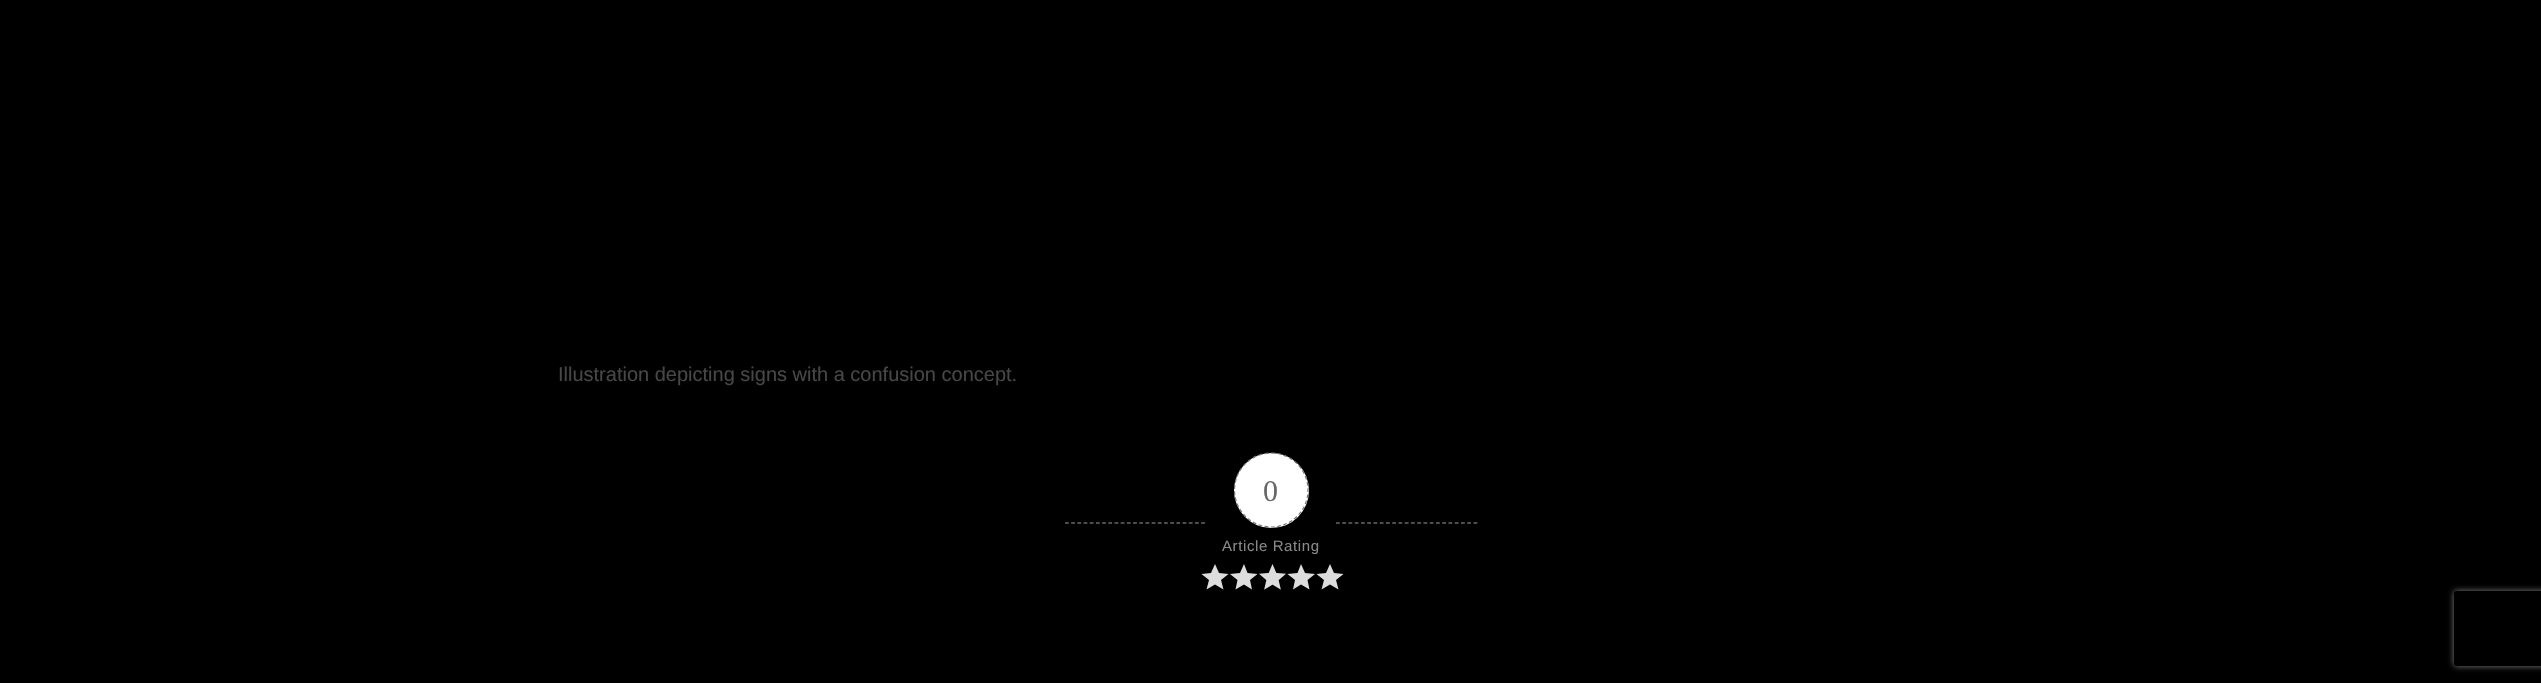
#include "include/core/SkBlurTypes.h"
#include "include/core/SkCanvas.h"
#include "include/core/SkData.h"
#include "include/core/SkFont.h"
#include "include/core/SkFontMgr.h"
#include "include/core/SkImage.h"
#include "include/core/SkMaskFilter.h"
#include "include/core/SkPaint.h"
#include "include/core/SkPathBuilder.h"
#include "include/core/SkTextBlob.h"
#include "include/effects/SkDashPathEffect.h"
#include "include/effects/SkGradientShader.h"
#include "include/utils/SkParsePath.h"

extern sk_sp<SkFontMgr> fontMgr;

static SkFont font(const char* family, int weight, float size, bool italic = false) {
    SkFontStyle style(weight, SkFontStyle::kNormal_Width,
        italic ? SkFontStyle::kItalic_Slant : SkFontStyle::kUpright_Slant);
    SkFont result(fontMgr->matchFamilyStyle(family, style), size);
    result.setSubpixel(true);
    return result;
}

static void drawLabel(SkCanvas* canvas, const char* s, float x, float y, const SkFont& font, SkColor color) {
    SkPaint ink(SkColor4f::FromColor(color));
    ink.setAntiAlias(true);
    canvas->drawString(s, x, y, font, ink);
}

static void drawTracked(SkCanvas* canvas, const char* s, float x, float y, const SkFont& font, const SkPaint& ink, float letter, float word) {
    std::vector<SkGlyphID> glyphs(font.countText(s, strlen(s), SkTextEncoding::kUTF8));
    std::vector<float> xs(glyphs.size());
    font.textToGlyphs(s, strlen(s), SkTextEncoding::kUTF8, glyphs);
    font.getXPos(glyphs, xs, x);
    float extra = 0;
    for (size_t i = 0; i < glyphs.size(); i++) {
        xs[i] += extra;
        extra += letter + word * (glyphs[i] == font.unicharToGlyph(' '));
    }
    canvas->drawTextBlob(SkTextBlob::MakeFromPosHGlyphs(glyphs, xs, y, font), 0, 0, ink);
}

static void drawPhoto(SkCanvas* canvas, const char* path, float x, float y, float w, float h) {
    auto image = SkImages::DeferredFromEncodedData(SkData::MakeFromFileName(path));
    canvas->drawImageRect(image, SkRect::MakeXYWH(x, y, w, h), SkSamplingOptions());
}

static SkPath parsePath(const char* data, bool evenOdd = false) {
    SkPath result = *SkParsePath::FromSVGString(data);
    if (evenOdd) result.setFillType(SkPathFillType::kEvenOdd);
    return result;
}

void draw(SkCanvas* canvas) {
    SkPaint paint;
    paint.setAntiAlias(true);
    canvas->clear(0xFF000000);
    SkFont font1 = font("Liberation Sans", 400, 20);
    drawLabel(canvas, "Illustration depicting signs with a confusion concept.", 558, 381, font1, 0xFF474747);
    paint.setStroke(true);
    paint.setStrokeWidth(1.2f);
    paint.setColor(0xFF999999);
    paint.setPathEffect(SkDashPathEffect::Make({{3.75f, 2.44f}}, 0));
    canvas->drawPath(parsePath("M1065 523H1205"), paint);
    paint.setPathEffect(nullptr);
    paint.setStroke(false);
    paint.setColor(0xFFFFFFFF);
    canvas->drawCircle(1271.5f, 490.5f, 37.5f, paint);
    paint.setStroke(true);
    paint.setColor(0xFF777777);
    paint.setPathEffect(SkDashPathEffect::Make({{3.75f, 2.5f}}, 0));
    canvas->drawPath(parsePath("M1271 453C1291.5 453 1308 469.5 1308 490C1308 510.5 1291.5 527 1271 527C1251 527 1234.5 510.5 1234.5 490C1234.5 469.5 1251 453 1271 453Z"), paint);
    paint.setPathEffect(nullptr);
    SkFont font2 = font("Liberation Serif", 400, 30);
    drawLabel(canvas, "0", 1263, 501, font2, 0xFF666666);
    SkFont font3 = font("Liberation Sans", 400, 15);
    paint.setStroke(false);
    paint.setColor(0xFF888888);
    drawTracked(canvas, "Article Rating", 1222, 551, font3, paint, 0.6f, 0);
    paint.setColor(0xFFDDDDDD);
    canvas->drawPath(parsePath("M1215 584.5L1223.5 589.5L1221 580L1228.5 574L1219 573L1215 564L1211 573L1201.5 574L1209 580L1206.5 589.5ZM1244 584.5L1252 589.5L1250 580L1257.5 574L1247.5 573L1244 564L1240 573L1230 574L1237.5 580L1235.5 589.5Z"), paint);
    drawPhoto(canvas, "assets/img1.png", 1259, 564, 27, 26);
    canvas->drawPath(parsePath("M1301 584.5L1309.5 589.5L1307.5 580L1315 574L1305 573L1301 564L1297.5 573L1287.5 574L1295 580L1293 589.5ZM1330 584.5L1338.5 589.5L1336 580L1343.5 574L1334 573L1330 564L1326 573L1316.5 574L1324 580L1321.5 589.5Z"), paint);
    paint.setStroke(true);
    paint.setColor(0xFF999999);
    paint.setPathEffect(SkDashPathEffect::Make({{3.75f, 2.5f}}, 0));
    canvas->drawPath(parsePath("M1336 523H1477.5"), paint);
    paint.setPathEffect(nullptr);
    canvas->save();
    canvas->clipPath(parsePath("M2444 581H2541V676H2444ZM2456.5 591H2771.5C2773 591 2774 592 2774 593.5V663.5C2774 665 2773 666 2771.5 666H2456.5C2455 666 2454 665 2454 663.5V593.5C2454 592 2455 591 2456.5 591Z", true), true);
    paint.setStroke(false);
    paint.setColor(0xFF808080);
    paint.setMaskFilter(SkMaskFilter::MakeBlur(kNormal_SkBlurStyle, 3));
    canvas->drawRoundRect(SkRect::MakeXYWH(2454, 591, 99, 75), 2.5f, 2.5f, paint);
    paint.setMaskFilter(nullptr);
    canvas->restore();
}
